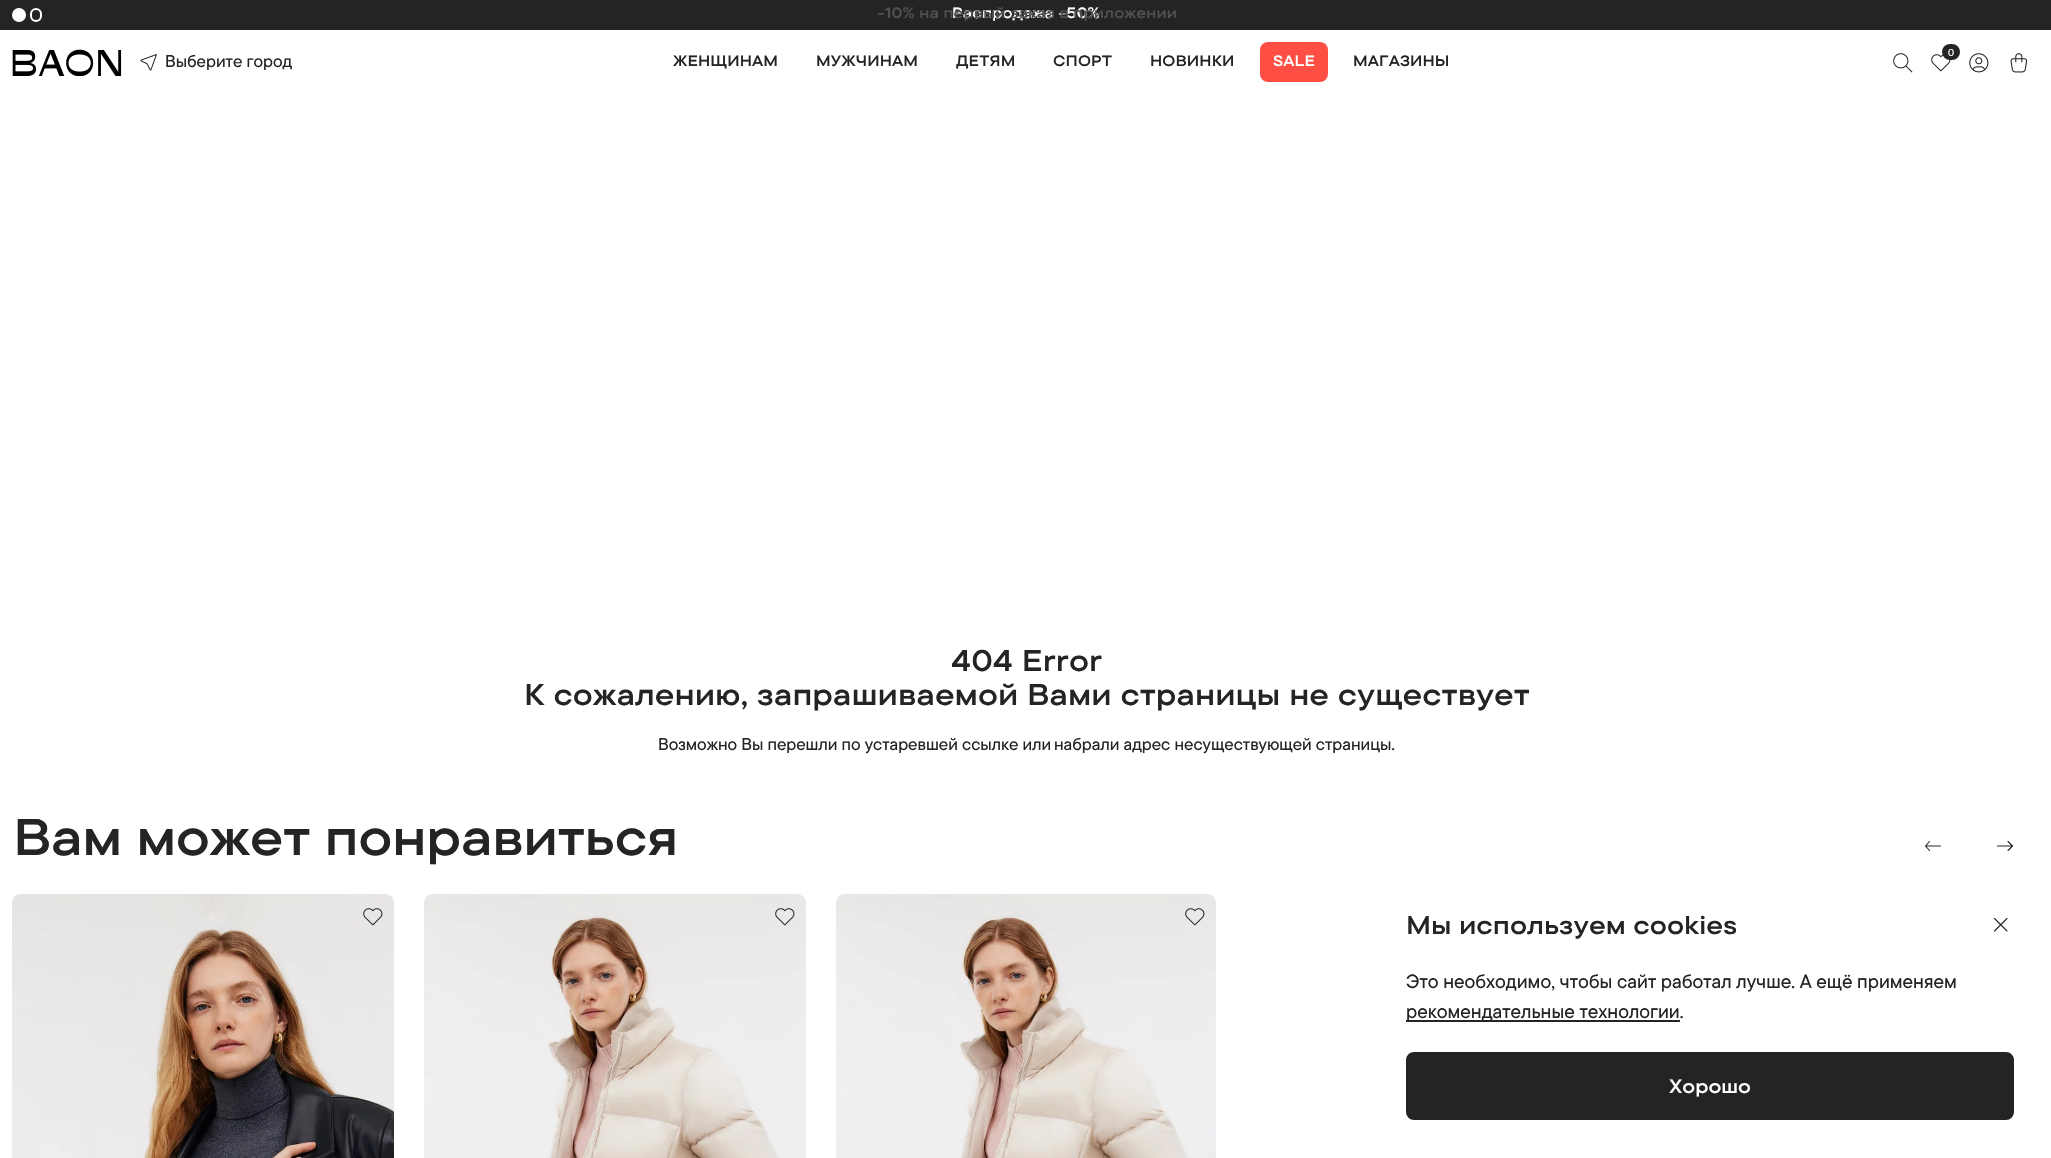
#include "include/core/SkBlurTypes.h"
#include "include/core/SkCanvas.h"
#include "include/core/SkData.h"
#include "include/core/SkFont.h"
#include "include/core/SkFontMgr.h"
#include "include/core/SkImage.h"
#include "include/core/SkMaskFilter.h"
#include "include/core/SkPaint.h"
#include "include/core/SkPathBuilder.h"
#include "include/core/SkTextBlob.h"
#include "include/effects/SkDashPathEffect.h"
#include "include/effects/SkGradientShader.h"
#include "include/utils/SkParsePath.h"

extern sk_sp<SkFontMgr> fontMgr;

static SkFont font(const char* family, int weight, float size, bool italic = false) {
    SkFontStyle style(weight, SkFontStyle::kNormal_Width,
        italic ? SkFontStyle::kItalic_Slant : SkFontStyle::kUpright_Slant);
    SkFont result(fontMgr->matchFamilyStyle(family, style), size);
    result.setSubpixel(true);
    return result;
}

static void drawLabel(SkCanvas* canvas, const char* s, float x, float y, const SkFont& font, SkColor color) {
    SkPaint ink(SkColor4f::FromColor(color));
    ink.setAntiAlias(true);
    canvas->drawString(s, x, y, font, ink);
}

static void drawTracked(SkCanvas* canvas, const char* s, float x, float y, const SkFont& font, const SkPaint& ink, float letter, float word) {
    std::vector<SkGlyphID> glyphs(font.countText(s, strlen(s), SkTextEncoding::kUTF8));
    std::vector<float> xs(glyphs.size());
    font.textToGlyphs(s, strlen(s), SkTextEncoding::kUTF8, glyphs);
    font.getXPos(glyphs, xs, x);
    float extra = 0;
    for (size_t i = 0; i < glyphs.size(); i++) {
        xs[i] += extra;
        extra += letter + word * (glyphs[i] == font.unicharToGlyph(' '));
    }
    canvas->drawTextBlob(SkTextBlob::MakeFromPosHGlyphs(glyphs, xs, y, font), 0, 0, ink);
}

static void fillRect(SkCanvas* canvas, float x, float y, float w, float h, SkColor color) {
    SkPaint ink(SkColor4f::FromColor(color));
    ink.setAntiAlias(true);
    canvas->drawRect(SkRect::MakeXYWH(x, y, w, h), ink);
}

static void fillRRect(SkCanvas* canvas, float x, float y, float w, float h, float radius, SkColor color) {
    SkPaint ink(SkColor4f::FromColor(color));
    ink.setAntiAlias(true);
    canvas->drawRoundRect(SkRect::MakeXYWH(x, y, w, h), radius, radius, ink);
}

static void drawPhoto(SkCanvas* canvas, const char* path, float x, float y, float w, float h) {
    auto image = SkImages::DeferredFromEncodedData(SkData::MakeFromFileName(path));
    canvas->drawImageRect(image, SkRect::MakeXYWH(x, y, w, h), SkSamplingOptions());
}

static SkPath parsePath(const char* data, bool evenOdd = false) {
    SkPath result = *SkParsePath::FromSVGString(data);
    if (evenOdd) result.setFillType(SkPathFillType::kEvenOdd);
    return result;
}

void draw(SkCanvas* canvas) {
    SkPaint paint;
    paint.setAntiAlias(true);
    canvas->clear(0xFFFFFFFF);
    fillRect(canvas, 0, 0, 2051, 30, 0xFF262422);
    paint.setColor(0xFFFFFFFF);
    canvas->drawCircle(19, 15, 6, paint);
    paint.setStroke(true);
    paint.setStrokeWidth(2);
    canvas->drawCircle(19, 15, 6, paint);
    canvas->drawRoundRect(SkRect::MakeXYWH(31, 9, 10, 12), 5, 5, paint);
    SkFont font1 = font("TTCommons", 600, 15);
    paint.setStroke(false);
    drawTracked(canvas, "Распродажа -50%", 952, 18, font1, paint, 0.1f, 0);
    paint.setColor(0xFF535150);
    drawTracked(canvas, "-10% на первый заказ в приложении", 877, 18, font1, paint, 0.1f, 0);
    drawPhoto(canvas, "assets/img1.png", 1893, 53, 20, 20);
    drawPhoto(canvas, "assets/img2.png", 1931, 54, 20, 18);
    fillRRect(canvas, 1942, 44, 18, 16, 8, 0xFF262422);
    SkFont font2 = font("TTCommons", 500, 10);
    drawLabel(canvas, "0", 1948, 56, font2, 0xFFFFFFFF);
    drawPhoto(canvas, "assets/img3.png", 1969, 53, 20, 20);
    drawPhoto(canvas, "assets/img4.png", 2010, 53, 18, 20);
    drawPhoto(canvas, "assets/img5.png", 12, 49, 110, 27);
    drawPhoto(canvas, "assets/img6.png", 140, 54, 17, 17);
    SkFont font3 = font("TTCommons", 500, 17.1f);
    drawLabel(canvas, "Выберите город", 165, 67, font3, 0xFF262422);
    paint.setColor(0xFF262422);
    drawTracked(canvas, "ЖЕНЩИНАМ", 673, 66, font1, paint, 0.1f, 0);
    drawTracked(canvas, "МУЖЧИНАМ", 816, 66, font1, paint, 0.1f, 0);
    drawTracked(canvas, "ДЕТЯМ", 956, 66, font1, paint, 0.1f, 0);
    drawTracked(canvas, "СПОРТ", 1053, 66, font1, paint, 0.1f, 0);
    drawTracked(canvas, "НОВИНКИ", 1150, 66, font1, paint, 0.1f, 0);
    fillRRect(canvas, 1260, 42, 68, 40, 8, 0xFFFF4E44);
    paint.setColor(0xFFFFFFFF);
    drawTracked(canvas, "SALE", 1273, 66, font1, paint, 0.1f, 0);
    paint.setColor(0xFF262422);
    drawTracked(canvas, "МАГАЗИНЫ", 1353, 66, font1, paint, 0.1f, 0);
    SkFont font4 = font("TTCommons", 600, 29.9f);
    drawLabel(canvas, "404 Error", 951, 671, font4, 0xFF262422);
    drawLabel(canvas, "К сожалению, запрашиваемой Вами страницы не существует", 524, 705, font4, 0xFF262422);
    drawLabel(canvas, "Возможно Вы перешли по устаревшей ссылке или", 658, 750, font3, 0xFF262422);
    drawLabel(canvas, "набрали адрес несуществующей страницы.", 1054, 750, font3, 0xFF262422);
    SkFont font5 = font("TTCommons", 600, 51.25f);
    drawTracked(canvas, "Вам может понравиться", 13, 855, font5, paint, -0.5f, 0);
    paint.setStroke(true);
    paint.setStrokeWidth(1.1f);
    paint.setStrokeCap(SkPaint::kRound_Cap);
    paint.setStrokeJoin(SkPaint::kRound_Join);
    canvas->drawPath(parsePath("M1925.5 846H1940.5M1925.5 846L1929.5 850.5M1925.5 846L1929.5 841.5"), paint);
    canvas->drawPath(parsePath("M1997.5 846H2012.5M2012.5 846L2008 850.5M2012.5 846L2008 841.5"), paint);
    drawPhoto(canvas, "assets/img7.png", 12, 894, 382, 264);
    drawPhoto(canvas, "assets/img8.png", 363, 908, 20, 18);
    drawPhoto(canvas, "assets/img9.png", 424, 894, 382, 264);
    drawPhoto(canvas, "assets/img10.png", 775, 908, 20, 18);
    drawPhoto(canvas, "assets/img11.png", 836, 894, 380, 264);
    drawPhoto(canvas, "assets/img10.png", 1185, 908, 20, 18);
    SkFont font6 = font("TTCommons", 600, 25.6f);
    drawLabel(canvas, "Мы используем cookies", 1406, 934, font6, 0xFF262422);
    canvas->drawPath(parsePath("M2007 918.5L1994.5 931M1994.5 918.5L2007 931"), paint);
    SkFont font7 = font("TTCommons", 500, 19.25f);
    drawLabel(canvas, "Это необходимо, чтобы сайт работал лучше. А ещё применяем", 1406, 988, font7, 0xFF262422);
    fillRect(canvas, 1406, 1020, 274, 2, 0xFF262422);
    drawLabel(canvas, "рекомендательные технологии.", 1406, 1018, font7, 0xFF262422);
    paint.setStroke(false);
    canvas->drawRoundRect(SkRect::MakeXYWH(1407, 1053, 606, 66), 7, 7, paint);
    paint.setStroke(true);
    paint.setStrokeWidth(2);
    paint.setStrokeCap(SkPaint::kButt_Cap);
    paint.setStrokeJoin(SkPaint::kMiter_Join);
    canvas->drawRoundRect(SkRect::MakeXYWH(1407, 1053, 606, 66), 7, 7, paint);
    SkFont font8 = font("TTCommons", 600, 19.25f);
    drawLabel(canvas, "Хорошо", 1669, 1093, font8, 0xFFFFFFFF);
}
